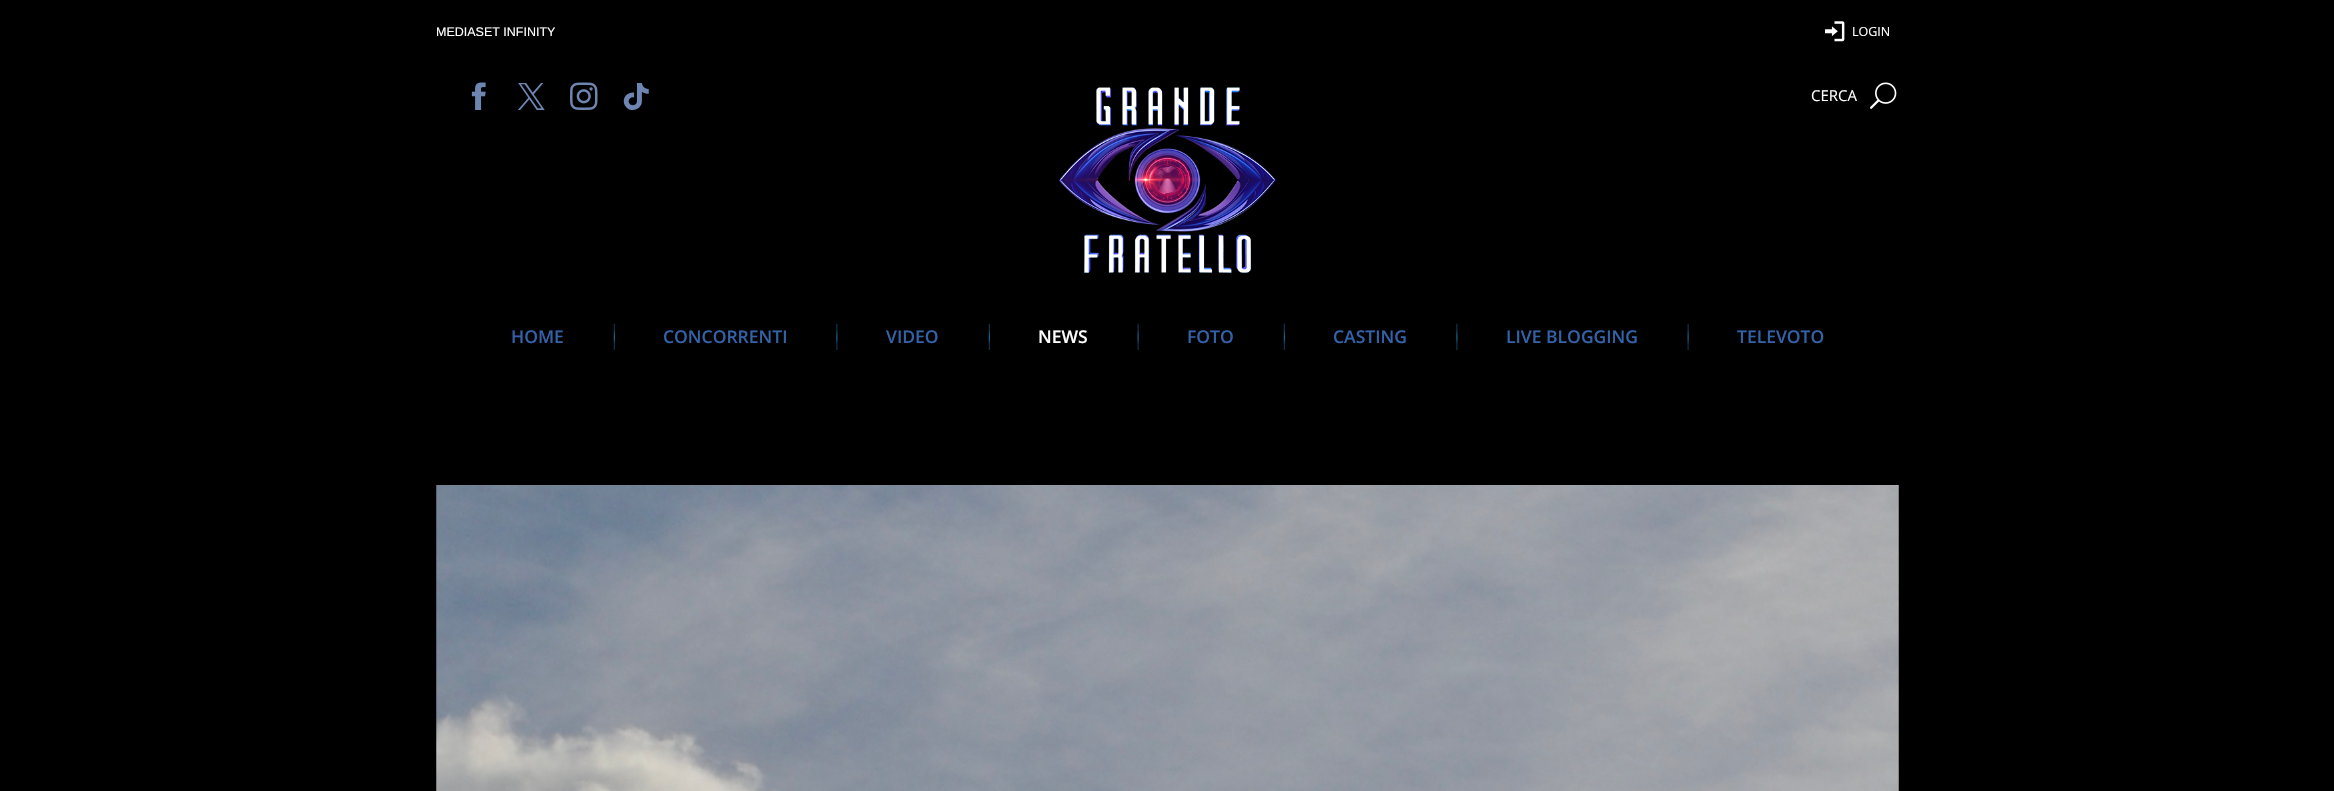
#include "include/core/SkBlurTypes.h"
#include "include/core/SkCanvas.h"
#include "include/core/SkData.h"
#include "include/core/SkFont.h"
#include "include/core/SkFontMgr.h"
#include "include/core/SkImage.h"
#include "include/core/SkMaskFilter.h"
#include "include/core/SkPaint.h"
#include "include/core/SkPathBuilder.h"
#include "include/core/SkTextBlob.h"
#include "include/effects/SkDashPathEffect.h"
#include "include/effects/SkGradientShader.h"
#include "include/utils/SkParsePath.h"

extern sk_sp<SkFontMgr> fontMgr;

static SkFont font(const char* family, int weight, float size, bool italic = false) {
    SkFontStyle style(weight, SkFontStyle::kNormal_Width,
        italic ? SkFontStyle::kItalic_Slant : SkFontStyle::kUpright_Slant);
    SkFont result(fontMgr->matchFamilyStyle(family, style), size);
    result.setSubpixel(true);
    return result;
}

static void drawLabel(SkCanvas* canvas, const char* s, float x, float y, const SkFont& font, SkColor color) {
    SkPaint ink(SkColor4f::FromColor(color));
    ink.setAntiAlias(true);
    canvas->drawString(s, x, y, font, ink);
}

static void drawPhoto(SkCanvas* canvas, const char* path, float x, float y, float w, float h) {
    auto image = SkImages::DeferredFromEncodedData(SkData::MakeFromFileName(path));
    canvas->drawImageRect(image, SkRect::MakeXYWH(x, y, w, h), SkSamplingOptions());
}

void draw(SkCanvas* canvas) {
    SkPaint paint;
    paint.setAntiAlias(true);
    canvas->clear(0xFF000000);
    SkFont font1 = font("Liberation Sans", 400, 12.5f);
    drawLabel(canvas, "MEDIASET INFINITY", 436, 36, font1, 0xFFFFFFFF);
    drawPhoto(canvas, "assets/img1.png", 1825, 21, 20, 21);
    SkFont font2 = font("Open Sans", 400, 12.5f);
    drawLabel(canvas, "LOGIN", 1852, 36, font2, 0xFFFFFFFF);
    drawPhoto(canvas, "assets/img2.png", 471, 82, 15, 28);
    drawPhoto(canvas, "assets/img3.png", 518, 83, 27, 27);
    drawPhoto(canvas, "assets/img4.png", 570, 82, 28, 28);
    drawPhoto(canvas, "assets/img5.png", 623, 83, 26, 27);
    SkFont font3 = font("Open Sans", 400, 15);
    drawLabel(canvas, "CERCA", 1811, 101, font3, 0xFFFFFFFF);
    drawPhoto(canvas, "assets/img6.png", 1870, 82, 27, 27);
    SkFont font4 = font("Open Sans", 600, 17.5f);
    drawLabel(canvas, "HOME", 511, 343, font4, 0xFF3362A8);
    drawPhoto(canvas, "assets/img7.png", 613, 323, 2, 27);
    drawLabel(canvas, "CONCORRENTI", 663, 343, font4, 0xFF3362A8);
    drawPhoto(canvas, "assets/img8.png", 836, 323, 2, 27);
    drawLabel(canvas, "VIDEO", 886, 343, font4, 0xFF3362A8);
    drawPhoto(canvas, "assets/img7.png", 988, 323, 2, 27);
    drawLabel(canvas, "NEWS", 1038, 343, font4, 0xFFFFFFFF);
    drawPhoto(canvas, "assets/img9.png", 1137, 323, 2, 27);
    drawLabel(canvas, "FOTO", 1187, 343, font4, 0xFF3362A8);
    drawPhoto(canvas, "assets/img7.png", 1283, 323, 2, 27);
    drawLabel(canvas, "CASTING", 1333, 343, font4, 0xFF3362A8);
    drawPhoto(canvas, "assets/img8.png", 1456, 323, 2, 27);
    drawLabel(canvas, "LIVE BLOGGING", 1506, 343, font4, 0xFF3362A8);
    drawPhoto(canvas, "assets/img9.png", 1687, 323, 2, 27);
    drawLabel(canvas, "TELEVOTO", 1737, 343, font4, 0xFF3362A8);
    drawPhoto(canvas, "assets/img10.png", 1058, 87, 219, 187);
    drawPhoto(canvas, "assets/img11.png", 436, 485, 1463, 306);
}
